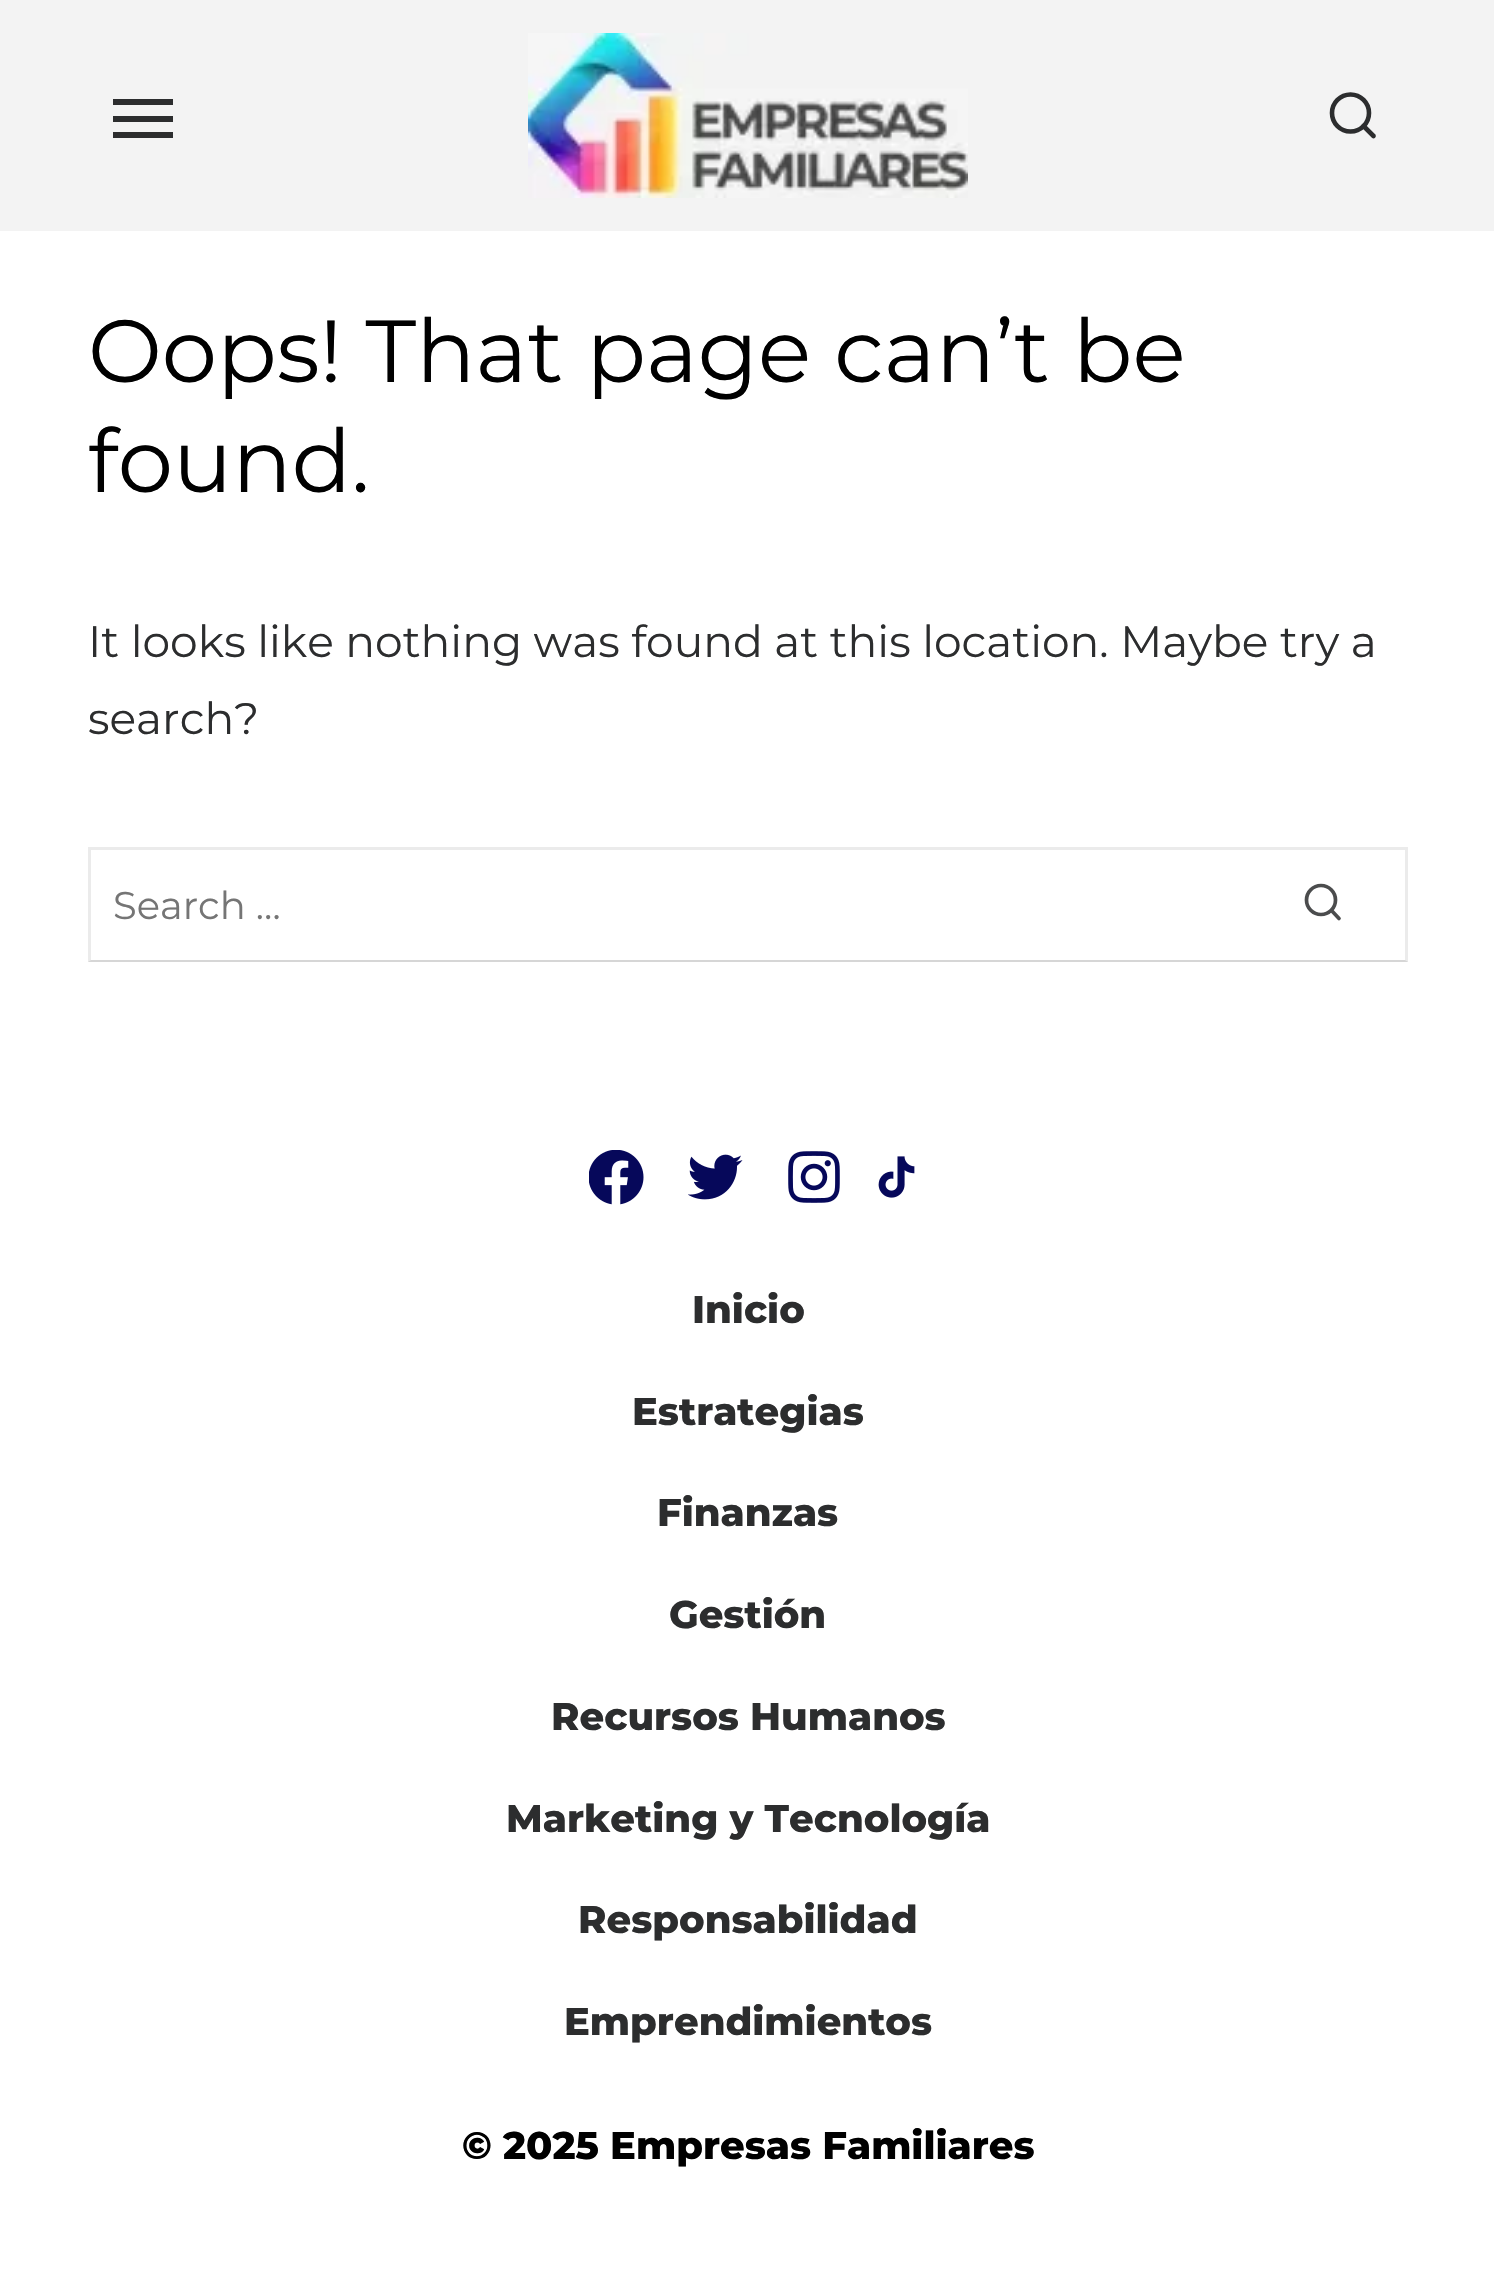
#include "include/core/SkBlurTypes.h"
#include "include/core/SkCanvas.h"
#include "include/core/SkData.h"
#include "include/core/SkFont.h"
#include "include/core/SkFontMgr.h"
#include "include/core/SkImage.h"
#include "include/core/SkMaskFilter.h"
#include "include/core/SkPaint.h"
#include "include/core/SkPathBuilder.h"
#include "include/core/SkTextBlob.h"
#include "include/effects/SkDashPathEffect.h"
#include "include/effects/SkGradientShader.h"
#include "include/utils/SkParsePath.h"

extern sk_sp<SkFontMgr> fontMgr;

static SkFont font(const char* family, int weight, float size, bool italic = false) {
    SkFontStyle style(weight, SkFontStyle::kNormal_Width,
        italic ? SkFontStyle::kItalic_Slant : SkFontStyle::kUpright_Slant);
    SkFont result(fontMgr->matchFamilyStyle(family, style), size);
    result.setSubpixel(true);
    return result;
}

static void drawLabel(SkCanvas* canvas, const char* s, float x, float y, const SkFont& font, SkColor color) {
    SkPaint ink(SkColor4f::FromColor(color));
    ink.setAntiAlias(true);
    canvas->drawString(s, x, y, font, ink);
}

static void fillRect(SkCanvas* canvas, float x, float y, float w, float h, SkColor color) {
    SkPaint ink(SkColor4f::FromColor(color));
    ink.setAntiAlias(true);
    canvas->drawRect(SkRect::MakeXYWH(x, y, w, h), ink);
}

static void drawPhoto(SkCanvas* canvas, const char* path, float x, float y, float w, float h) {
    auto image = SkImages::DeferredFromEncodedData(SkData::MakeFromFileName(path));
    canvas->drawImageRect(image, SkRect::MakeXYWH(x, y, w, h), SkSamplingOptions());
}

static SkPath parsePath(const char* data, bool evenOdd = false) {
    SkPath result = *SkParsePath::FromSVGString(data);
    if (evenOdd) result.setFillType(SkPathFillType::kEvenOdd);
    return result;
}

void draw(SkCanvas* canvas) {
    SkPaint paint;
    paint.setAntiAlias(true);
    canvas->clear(0xFFFFFFFF);
    fillRect(canvas, 0, 0, 1494, 231, 0xFFF3F3F3);
    fillRect(canvas, 113, 116, 60, 6, 0xFF2C2D2E);
    fillRect(canvas, 113, 99, 60, 6, 0xFF2C2D2E);
    fillRect(canvas, 113, 132, 60, 6, 0xFF2C2D2E);
    drawPhoto(canvas, "assets/img1.png", 528, 33, 440, 165);
    paint.setStroke(true);
    paint.setStrokeWidth(4.6f);
    paint.setColor(0xFF2C2D2E);
    canvas->drawCircle(1350.5f, 113, 18.5f, paint);
    paint.setStrokeCap(SkPaint::kRound_Cap);
    paint.setStrokeJoin(SkPaint::kRound_Join);
    canvas->drawPath(parsePath("M1373.5 136L1363.5 126"), paint);
    SkFont font1 = font("Montserrat", 400, 88);
    drawLabel(canvas, "Oops! That page can’t be", 88, 382, font1, 0xFF000000);
    drawLabel(canvas, "found.", 88, 492, font1, 0xFF000000);
    SkFont font2 = font("Montserrat", 400, 44);
    drawLabel(canvas, "It looks like nothing was found at this location. Maybe try a", 88, 657, font2, 0xFF2C2D2E);
    drawLabel(canvas, "search?", 88, 734, font2, 0xFF2C2D2E);
    paint.setStroke(false);
    paint.setColor(0xFFEBEBEB);
    canvas->drawPath(parsePath("M88 847H1408L1405 850H91Z"), paint);
    paint.setColor(0x14000000);
    canvas->drawPath(parsePath("M1408 847V962L1405 960V850Z"), paint);
    paint.setColor(0x29000000);
    canvas->drawPath(parsePath("M1408 962H88L91 960H1405Z"), paint);
    paint.setColor(0x14000000);
    canvas->drawPath(parsePath("M88 962V847L91 850V960Z"), paint);
    SkFont font3 = font("Montserrat", 400, 38.5f);
    drawLabel(canvas, "Search …", 113, 919, font3, 0xFF757575);
    paint.setStroke(true);
    paint.setStrokeWidth(3.7f);
    paint.setStrokeCap(SkPaint::kButt_Cap);
    paint.setStrokeJoin(SkPaint::kMiter_Join);
    paint.setColor(0xFF4B4C4D);
    canvas->drawCircle(1321, 900, 14.5f, paint);
    paint.setStrokeCap(SkPaint::kRound_Cap);
    paint.setStrokeJoin(SkPaint::kRound_Join);
    canvas->drawPath(parsePath("M1339 918.5L1331.5 910.5"), paint);
    drawPhoto(canvas, "assets/img2.png", 589, 1150, 55, 55);
    drawPhoto(canvas, "assets/img3.png", 688, 1154, 55, 46);
    drawPhoto(canvas, "assets/img4.png", 788, 1151, 52, 52);
    drawPhoto(canvas, "assets/img5.png", 878, 1156, 37, 42);
    SkFont font4 = font("Montserrat", 800, 38.5f);
    drawLabel(canvas, "Inicio", 692, 1323, font4, 0xFF2C2D2E);
    drawLabel(canvas, "Estrategias", 632, 1425, font4, 0xFF2C2D2E);
    drawLabel(canvas, "Finanzas", 657, 1526, font4, 0xFF2C2D2E);
    drawLabel(canvas, "Gestión", 669, 1628, font4, 0xFF2C2D2E);
    drawLabel(canvas, "Recursos Humanos", 551, 1730, font4, 0xFF2C2D2E);
    drawLabel(canvas, "Marketing y Tecnología", 506, 1832, font4, 0xFF2C2D2E);
    drawLabel(canvas, "Responsabilidad", 578, 1933, font4, 0xFF2C2D2E);
    drawLabel(canvas, "Emprendimientos", 564, 2035, font4, 0xFF2C2D2E);
    drawLabel(canvas, "© 2025 Empresas Familiares", 462, 2159, font4, 0xFF000000);
}
